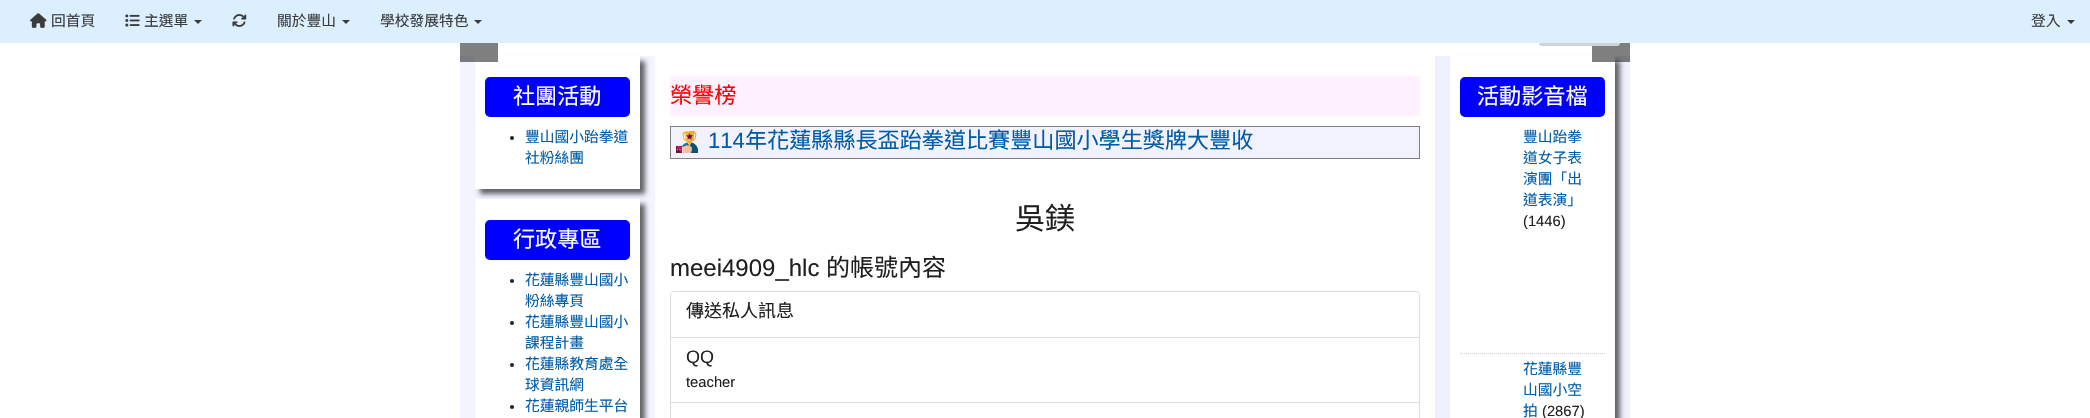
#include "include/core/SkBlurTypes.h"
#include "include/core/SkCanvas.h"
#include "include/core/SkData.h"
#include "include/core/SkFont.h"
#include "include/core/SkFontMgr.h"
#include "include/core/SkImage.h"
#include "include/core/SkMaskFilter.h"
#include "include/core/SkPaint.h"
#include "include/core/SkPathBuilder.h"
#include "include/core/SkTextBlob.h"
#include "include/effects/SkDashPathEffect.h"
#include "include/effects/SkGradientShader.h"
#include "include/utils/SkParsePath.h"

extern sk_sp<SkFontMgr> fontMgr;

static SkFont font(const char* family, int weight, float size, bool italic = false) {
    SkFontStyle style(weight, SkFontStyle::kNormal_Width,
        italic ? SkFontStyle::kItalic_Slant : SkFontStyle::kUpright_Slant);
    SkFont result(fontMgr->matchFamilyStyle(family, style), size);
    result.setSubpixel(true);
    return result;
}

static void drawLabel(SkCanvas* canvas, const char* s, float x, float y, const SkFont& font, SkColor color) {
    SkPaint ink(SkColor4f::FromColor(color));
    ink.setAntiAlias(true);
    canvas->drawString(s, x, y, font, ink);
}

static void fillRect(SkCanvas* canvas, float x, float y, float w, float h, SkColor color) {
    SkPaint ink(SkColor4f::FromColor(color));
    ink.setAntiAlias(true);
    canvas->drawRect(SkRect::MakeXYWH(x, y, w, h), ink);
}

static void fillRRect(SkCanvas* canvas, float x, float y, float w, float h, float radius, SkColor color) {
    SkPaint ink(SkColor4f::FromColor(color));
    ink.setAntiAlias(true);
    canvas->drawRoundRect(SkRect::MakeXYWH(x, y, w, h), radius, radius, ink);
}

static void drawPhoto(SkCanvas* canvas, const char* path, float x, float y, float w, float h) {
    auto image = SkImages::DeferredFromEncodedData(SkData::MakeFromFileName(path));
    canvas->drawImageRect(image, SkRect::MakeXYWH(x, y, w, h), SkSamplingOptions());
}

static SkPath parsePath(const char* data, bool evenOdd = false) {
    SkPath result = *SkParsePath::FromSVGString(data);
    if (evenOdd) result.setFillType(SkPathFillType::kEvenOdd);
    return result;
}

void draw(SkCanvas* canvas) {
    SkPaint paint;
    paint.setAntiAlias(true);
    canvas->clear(0xFFFFFFFF);
    fillRect(canvas, 1435, 56, 195, 362, 0xFFF0F1FF);
    paint.setColor(0x99000000);
    paint.setMaskFilter(SkMaskFilter::MakeBlur(kNormal_SkBlurStyle, 2.5f));
    canvas->drawRect(SkRect::MakeXYWH(1455, 61, 165, 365), paint);
    paint.setMaskFilter(nullptr);
    fillRect(canvas, 1450, 56, 165, 362, 0xFFFFFFFF);
    drawPhoto(canvas, "assets/img5.png", 1592, 43, 38, 19);
    fillRRect(canvas, 1539, 16, 81, 30, 3, 0xFFD3D2D6);
    fillRect(canvas, 0, 0, 2090, 43, 0xFFDBEFFF);
    drawPhoto(canvas, "assets/img1.png", 30, 13, 17, 15);
    SkFont font1 = font("Noto Sans CJK TC", 400, 14.75f);
    drawLabel(canvas, "回首頁", 51, 26, font1, 0xFF3B3B3B);
    drawPhoto(canvas, "assets/img2.png", 125, 14, 15, 13);
    drawLabel(canvas, "主選單", 144, 26, font1, 0xFF3B3B3B);
    paint.setColor(0xFF3B3B3B);
    canvas->drawPath(parsePath("M194 20H202L198 24Z"), paint);
    drawPhoto(canvas, "assets/img3.png", 232, 14, 15, 13);
    drawLabel(canvas, "關於豐山", 277, 26, font1, 0xFF3B3B3B);
    canvas->drawPath(parsePath("M342 20H350L346 24Z"), paint);
    drawLabel(canvas, "學校發展特色", 380, 26, font1, 0xFF3B3B3B);
    canvas->drawPath(parsePath("M474 20H482L478 24Z"), paint);
    drawLabel(canvas, "登入", 2031, 26, font1, 0xFF3B3B3B);
    canvas->drawPath(parsePath("M2067 20H2075L2071 24Z"), paint);
    fillRect(canvas, 460, 56, 195, 362, 0xFFF2F4FF);
    paint.setColor(0x99000000);
    paint.setMaskFilter(SkMaskFilter::MakeBlur(kNormal_SkBlurStyle, 2.5f));
    canvas->drawRect(SkRect::MakeXYWH(480, 61, 165, 133), paint);
    paint.setMaskFilter(nullptr);
    fillRect(canvas, 475, 56, 165, 133, 0xFFFFFFFF);
    drawPhoto(canvas, "assets/img4.png", 460, 43, 38, 19);
    fillRRect(canvas, 485, 77, 145, 40, 5, 0xFF0000FF);
    SkFont font2 = font("Noto Sans CJK TC", 400, 22.1f);
    drawLabel(canvas, "社團活動", 513, 104, font2, 0xFFFFFFFF);
    paint.setColor(0xFF202020);
    canvas->drawCircle(512, 138, 2, paint);
    drawLabel(canvas, "豐山國小跆拳道", 525, 142, font1, 0xFF005CA8);
    drawLabel(canvas, "社粉絲團", 525, 163, font1, 0xFF005CA8);
    paint.setColor(0x99000000);
    paint.setMaskFilter(SkMaskFilter::MakeBlur(kNormal_SkBlurStyle, 2.5f));
    canvas->drawRect(SkRect::MakeXYWH(480, 204, 165, 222), paint);
    paint.setMaskFilter(nullptr);
    fillRect(canvas, 475, 199, 165, 219, 0xFFFFFFFF);
    fillRRect(canvas, 485, 220, 145, 40, 5, 0xFF0000FF);
    drawLabel(canvas, "行政專區", 513, 247, font2, 0xFFFFFFFF);
    paint.setColor(0xFF202020);
    canvas->drawCircle(512, 281, 2, paint);
    drawLabel(canvas, "花蓮縣豐山國小", 525, 285, font1, 0xFF005CA8);
    drawLabel(canvas, "粉絲專頁", 525, 306, font1, 0xFF005CA8);
    canvas->drawCircle(512, 323, 2, paint);
    drawLabel(canvas, "花蓮縣豐山國小", 525, 327, font1, 0xFF005CA8);
    drawLabel(canvas, "課程計畫", 525, 348, font1, 0xFF005CA8);
    canvas->drawCircle(512, 365, 2, paint);
    drawLabel(canvas, "花蓮縣教育處全", 525, 369, font1, 0xFF005CA8);
    drawLabel(canvas, "球資訊網", 525, 390, font1, 0xFF005CA8);
    canvas->drawCircle(512, 407, 2, paint);
    drawLabel(canvas, "花蓮親師生平台", 525, 411, font1, 0xFF005CA8);
    fillRect(canvas, 670, 76, 750, 40, 0xFFFFF1FF);
    drawLabel(canvas, "榮譽榜", 670, 103, font2, 0xFFFF0000);
    paint.setColor(0xFFF2F2FF);
    canvas->drawRect(SkRect::MakeXYWH(670.5f, 126.5f, 749, 32), paint);
    paint.setStroke(true);
    paint.setStrokeWidth(1);
    paint.setColor(0xFF808080);
    canvas->drawRect(SkRect::MakeXYWH(670.5f, 126.5f, 749, 32), paint);
    drawPhoto(canvas, "assets/img6.png", 676, 131, 22, 22);
    SkFont font3 = font("Liberation Sans", 400, 22.1f);
    drawLabel(canvas, "114", 708, 148, font3, 0xFF005CA8);
    drawLabel(canvas, "年花蓮縣縣長盃跆拳道比賽豐山國小學生獎牌大豐收", 745, 148, font2, 0xFF005CA8);
    SkFont font4 = font("Noto Sans CJK TC", 400, 30);
    drawLabel(canvas, "吳鎂", 1015, 229, font4, 0xFF202020);
    SkFont font5 = font("Liberation Sans", 400, 24);
    drawLabel(canvas, "meei4909_hlc", 670, 276, font5, 0xFF202020);
    SkFont font6 = font("Noto Sans CJK TC", 400, 24);
    drawLabel(canvas, "的帳號內容", 826, 276, font6, 0xFF202020);
    paint.setColor(0xFFDDDDDD);
    canvas->drawPath(parsePath("M674 291.5H1416C1418 291.5 1419.5 293 1419.5 295V337.5H670.5V295C670.5 293 672 291.5 674 291.5Z"), paint);
    SkFont font7 = font("Noto Sans CJK TC", 400, 18);
    drawLabel(canvas, "傳送私人訊息", 686, 317, font7, 0xFF202020);
    canvas->drawRect(SkRect::MakeXYWH(670.5f, 337.5f, 749, 65), paint);
    SkFont font8 = font("Liberation Sans", 400, 18);
    drawLabel(canvas, "QQ", 686, 363, font8, 0xFF202020);
    SkFont font9 = font("Liberation Sans", 400, 14.75f);
    drawLabel(canvas, "teacher", 686, 387, font9, 0xFF202020);
    canvas->drawRect(SkRect::MakeXYWH(670.5f, 402.5f, 749, 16), paint);
    fillRRect(canvas, 1460, 77, 145, 40, 5, 0xFF0000FF);
    drawLabel(canvas, "活動影音檔", 1477, 104, font2, 0xFFFFFFFF);
    paint.setColor(0xFFCFCFCF);
    paint.setPathEffect(SkDashPathEffect::Make({{1, 1}}, 0));
    canvas->drawPath(parsePath("M1460 353.5H1605"), paint);
    paint.setPathEffect(nullptr);
    drawLabel(canvas, "豐山跆拳", 1523, 142, font1, 0xFF005CA8);
    drawLabel(canvas, "道女子表", 1523, 163, font1, 0xFF005CA8);
    drawLabel(canvas, "演團「出", 1523, 184, font1, 0xFF005CA8);
    drawLabel(canvas, "道表演」", 1523, 205, font1, 0xFF005CA8);
    drawLabel(canvas, "(1446)", 1523, 226, font9, 0xFF202020);
    drawLabel(canvas, "花蓮縣豐", 1523, 374, font1, 0xFF005CA8);
    drawLabel(canvas, "山國小空", 1523, 395, font1, 0xFF005CA8);
    drawLabel(canvas, "拍", 1523, 416, font1, 0xFF005CA8);
    drawLabel(canvas, "(2867)", 1542, 416, font9, 0xFF202020);
}
